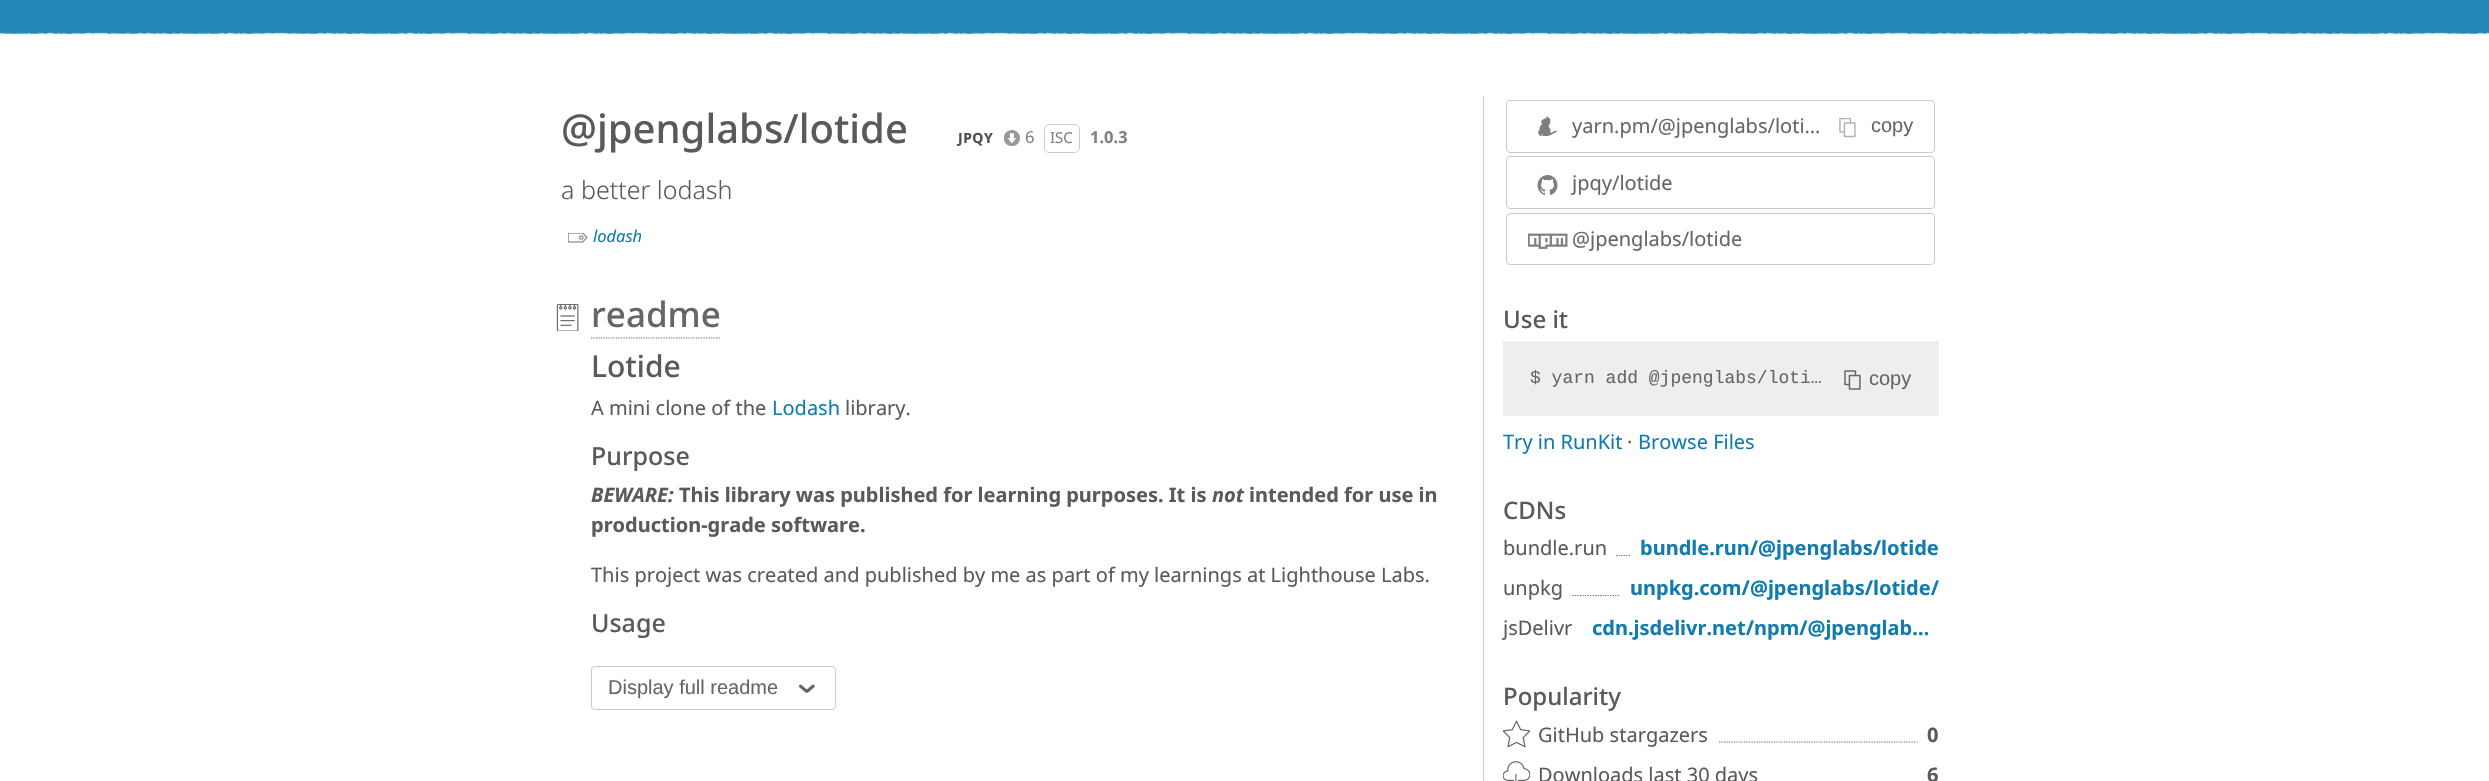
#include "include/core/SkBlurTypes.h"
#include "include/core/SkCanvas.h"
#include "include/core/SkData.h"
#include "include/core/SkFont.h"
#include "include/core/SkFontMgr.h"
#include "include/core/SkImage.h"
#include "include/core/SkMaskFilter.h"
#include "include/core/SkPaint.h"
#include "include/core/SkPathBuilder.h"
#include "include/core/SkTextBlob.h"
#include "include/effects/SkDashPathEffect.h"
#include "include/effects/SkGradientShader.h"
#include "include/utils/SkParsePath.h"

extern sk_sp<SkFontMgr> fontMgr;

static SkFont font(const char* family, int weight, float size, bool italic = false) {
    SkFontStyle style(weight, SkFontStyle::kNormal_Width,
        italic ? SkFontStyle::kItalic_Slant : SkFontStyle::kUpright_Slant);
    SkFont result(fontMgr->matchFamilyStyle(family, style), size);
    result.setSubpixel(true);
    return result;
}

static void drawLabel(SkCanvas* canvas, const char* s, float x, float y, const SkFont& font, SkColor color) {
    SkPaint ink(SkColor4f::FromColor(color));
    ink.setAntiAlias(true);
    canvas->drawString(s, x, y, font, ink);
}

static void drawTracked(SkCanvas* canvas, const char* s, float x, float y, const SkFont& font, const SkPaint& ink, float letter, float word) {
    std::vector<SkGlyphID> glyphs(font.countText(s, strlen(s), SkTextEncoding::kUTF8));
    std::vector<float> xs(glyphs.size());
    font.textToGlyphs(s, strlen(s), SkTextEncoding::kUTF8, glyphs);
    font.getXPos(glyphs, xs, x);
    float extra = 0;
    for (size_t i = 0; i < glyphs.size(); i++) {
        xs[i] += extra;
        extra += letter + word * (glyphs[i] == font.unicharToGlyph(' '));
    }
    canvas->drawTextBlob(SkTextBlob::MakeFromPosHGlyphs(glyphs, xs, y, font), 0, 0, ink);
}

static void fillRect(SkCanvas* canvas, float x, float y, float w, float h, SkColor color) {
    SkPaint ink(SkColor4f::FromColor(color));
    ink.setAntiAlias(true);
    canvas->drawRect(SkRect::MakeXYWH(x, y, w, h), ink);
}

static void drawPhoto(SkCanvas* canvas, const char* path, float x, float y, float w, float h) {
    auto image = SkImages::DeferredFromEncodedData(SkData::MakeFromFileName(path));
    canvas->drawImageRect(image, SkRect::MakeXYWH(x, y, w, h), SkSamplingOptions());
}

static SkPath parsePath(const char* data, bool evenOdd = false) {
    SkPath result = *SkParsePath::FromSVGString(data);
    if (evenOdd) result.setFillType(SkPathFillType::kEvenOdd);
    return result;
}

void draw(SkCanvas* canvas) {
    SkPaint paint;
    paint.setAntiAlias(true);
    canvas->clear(0xFFFFFFFF);
    fillRect(canvas, 0, 0, 2489, 36, 0xFF2188B6);
    drawPhoto(canvas, "assets/img1.png", 0, 32, 2489, 4);
    SkFont font1 = font("Noto Sans", 500, 40);
    drawLabel(canvas, "@jpenglabs/lotide", 561, 143, font1, 0xFF5A5A5A);
    SkFont font2 = font("Noto Sans", 700, 14);
    paint.setColor(0xFF4D4D4D);
    drawTracked(canvas, "JPQY", 958, 143, font2, paint, 0.5f, 0);
    drawPhoto(canvas, "assets/img2.png", 1004, 130, 16, 16);
    SkFont font3 = font("Noto Sans", 400, 16.5f);
    drawLabel(canvas, "6", 1025, 143, font3, 0xFF808080);
    paint.setStroke(true);
    paint.setStrokeWidth(1);
    paint.setColor(0xFFCCCCCC);
    canvas->drawRoundRect(SkRect::MakeXYWH(1044.5f, 124.5f, 35, 28), 4.5f, 4.5f, paint);
    SkFont font4 = font("Noto Sans", 400, 15);
    drawLabel(canvas, "ISC", 1050, 143, font4, 0xFF808080);
    SkFont font5 = font("Noto Sans", 700, 16.5f);
    drawLabel(canvas, "1.0.3", 1090, 143, font5, 0xFF808080);
    SkFont font6 = font("Noto Sans", 300, 25);
    drawLabel(canvas, "a better lodash", 561, 199, font6, 0xFF5A5A5A);
    drawPhoto(canvas, "assets/img3.png", 568, 233, 20, 10);
    SkFont font7 = font("Noto Sans", 400, 16.5f, true);
    drawLabel(canvas, "lodash", 593, 242, font7, 0xFF117CAD);
    paint.setStrokeWidth(1.2f);
    paint.setColor(0xFF666666);
    paint.setPathEffect(SkDashPathEffect::Make({{1.25f, 1.25f}}, 0));
    canvas->drawPath(parsePath("M591 338H721"), paint);
    paint.setPathEffect(nullptr);
    drawPhoto(canvas, "assets/img4.png", 556, 304, 23, 27);
    SkFont font8 = font("Noto Sans", 500, 35);
    drawLabel(canvas, "readme", 591, 327, font8, 0xFF666666);
    SkFont font9 = font("Noto Sans", 500, 30);
    drawLabel(canvas, "Lotide", 591, 377, font9, 0xFF5A5A5A);
    SkFont font10 = font("Noto Sans", 400, 20);
    drawLabel(canvas, "A mini clone of the", 591, 415, font10, 0xFF5A5A5A);
    drawLabel(canvas, "Lodash", 772, 415, font10, 0xFF117CAD);
    drawLabel(canvas, "library.", 845, 415, font10, 0xFF5A5A5A);
    SkFont font11 = font("Noto Sans", 500, 25);
    drawLabel(canvas, "Purpose", 591, 465, font11, 0xFF5A5A5A);
    SkFont font12 = font("Noto Sans", 700, 20, true);
    drawLabel(canvas, "BEWARE:", 591, 502, font12, 0xFF5A5A5A);
    SkFont font13 = font("Noto Sans", 700, 20);
    drawLabel(canvas, "This library was published for learning purposes. It is", 679, 502, font13, 0xFF5A5A5A);
    drawLabel(canvas, "not", 1212, 502, font12, 0xFF5A5A5A);
    drawLabel(canvas, "intended for use in", 1249, 502, font13, 0xFF5A5A5A);
    drawLabel(canvas, "production-grade software.", 591, 532, font13, 0xFF5A5A5A);
    drawLabel(canvas, "This project was created and published by me as part of my learnings at Lighthouse Labs.", 591, 582, font10, 0xFF5A5A5A);
    drawLabel(canvas, "Usage", 591, 632, font11, 0xFF5A5A5A);
    paint.setStrokeWidth(1);
    paint.setColor(0xFFCBCBCB);
    canvas->drawRoundRect(SkRect::MakeXYWH(591.5f, 666.5f, 244, 43), 3.5f, 3.5f, paint);
    SkFont font14 = font("Liberation Sans", 400, 20);
    drawLabel(canvas, "Display full readme", 608, 694, font14, 0xFF666666);
    drawPhoto(canvas, "assets/img5.png", 799, 684, 16, 9);
    fillRect(canvas, 1483, 96, 1, 685, 0xFFCBCBCB);
    canvas->drawRoundRect(SkRect::MakeXYWH(1506.5f, 100.5f, 428, 52), 3.5f, 3.5f, paint);
    drawPhoto(canvas, "assets/img6.png", 1538, 116, 19, 20);
    drawLabel(canvas, "yarn.pm/@jpenglabs/loti…", 1572, 133, font10, 0xFF666666);
    drawPhoto(canvas, "assets/img7.png", 1839, 118, 17, 20);
    drawLabel(canvas, "copy", 1871, 132, font14, 0xFF666666);
    canvas->drawRoundRect(SkRect::MakeXYWH(1506.5f, 156.5f, 428, 52), 3.5f, 3.5f, paint);
    drawPhoto(canvas, "assets/img8.png", 1537, 175, 21, 20);
    drawLabel(canvas, "jpqy/lotide", 1572, 190, font10, 0xFF666666);
    canvas->drawRoundRect(SkRect::MakeXYWH(1506.5f, 213.5f, 428, 51), 3.5f, 3.5f, paint);
    drawPhoto(canvas, "assets/img9.png", 1528, 233, 40, 16);
    drawLabel(canvas, "@jpenglabs/lotide", 1572, 246, font10, 0xFF666666);
    SkFont font15 = font("Noto Sans", 500, 24);
    drawLabel(canvas, "Use it", 1503, 328, font15, 0xFF5A5A5A);
    fillRect(canvas, 1503, 341, 436, 75, 0xFFECEEEF);
    SkFont font16 = font("Liberation Mono", 400, 18);
    drawLabel(canvas, "$ yarn add @jpenglabs/loti…", 1530, 383, font16, 0xFF666666);
    drawPhoto(canvas, "assets/img10.png", 1844, 370, 17, 20);
    drawLabel(canvas, "copy", 1869, 385, font14, 0xFF666666);
    drawLabel(canvas, "Try in RunKit", 1503, 449, font10, 0xFF117CAD);
    drawLabel(canvas, "·", 1627, 449, font10, 0xFF5A5A5A);
    drawLabel(canvas, "Browse Files", 1638, 449, font10, 0xFF117CAD);
    drawLabel(canvas, "CDNs", 1503, 519, font15, 0xFF5A5A5A);
    drawLabel(canvas, "bundle.run", 1503, 555, font10, 0xFF5A5A5A);
    paint.setStrokeWidth(1.2f);
    paint.setColor(0xFF666666);
    paint.setPathEffect(SkDashPathEffect::Make({{1.25f, 1.25f}}, 0));
    canvas->drawPath(parsePath("M1616 555.5H1630"), paint);
    paint.setPathEffect(nullptr);
    drawLabel(canvas, "bundle.run/@jpenglabs/lotide", 1640, 555, font13, 0xFF117CAD);
    drawLabel(canvas, "unpkg", 1503, 595, font10, 0xFF5A5A5A);
    paint.setPathEffect(SkDashPathEffect::Make({{1.25f, 1.25f}}, 0));
    canvas->drawPath(parsePath("M1572.5 595.5H1620"), paint);
    paint.setPathEffect(nullptr);
    drawLabel(canvas, "unpkg.com/@jpenglabs/lotide/", 1630, 595, font13, 0xFF117CAD);
    drawLabel(canvas, "jsDelivr", 1503, 635, font10, 0xFF5A5A5A);
    canvas->save();
    canvas->clipRect(SkRect::MakeXYWH(1593, 613, 346, 30));
    drawLabel(canvas, "cdn.jsdelivr.net/npm/@jpenglab…", 1592, 635, font13, 0xFF117CAD);
    canvas->restore();
    drawLabel(canvas, "Popularity", 1503, 705, font15, 0xFF5A5A5A);
    drawPhoto(canvas, "assets/img11.png", 1503, 720, 27, 28);
    drawLabel(canvas, "GitHub stargazers", 1538, 742, font10, 0xFF5A5A5A);
    paint.setPathEffect(SkDashPathEffect::Make({{1.25f, 1.25f}}, 0));
    canvas->drawPath(parsePath("M1719 742H1917.5"), paint);
    paint.setPathEffect(nullptr);
    drawLabel(canvas, "0", 1927, 742, font13, 0xFF5A5A5A);
    drawPhoto(canvas, "assets/img12.png", 1503, 761, 27, 20);
    drawLabel(canvas, "Downloads last 30 days", 1538, 782, font10, 0xFF5A5A5A);
    drawLabel(canvas, "6", 1927, 782, font13, 0xFF5A5A5A);
}
